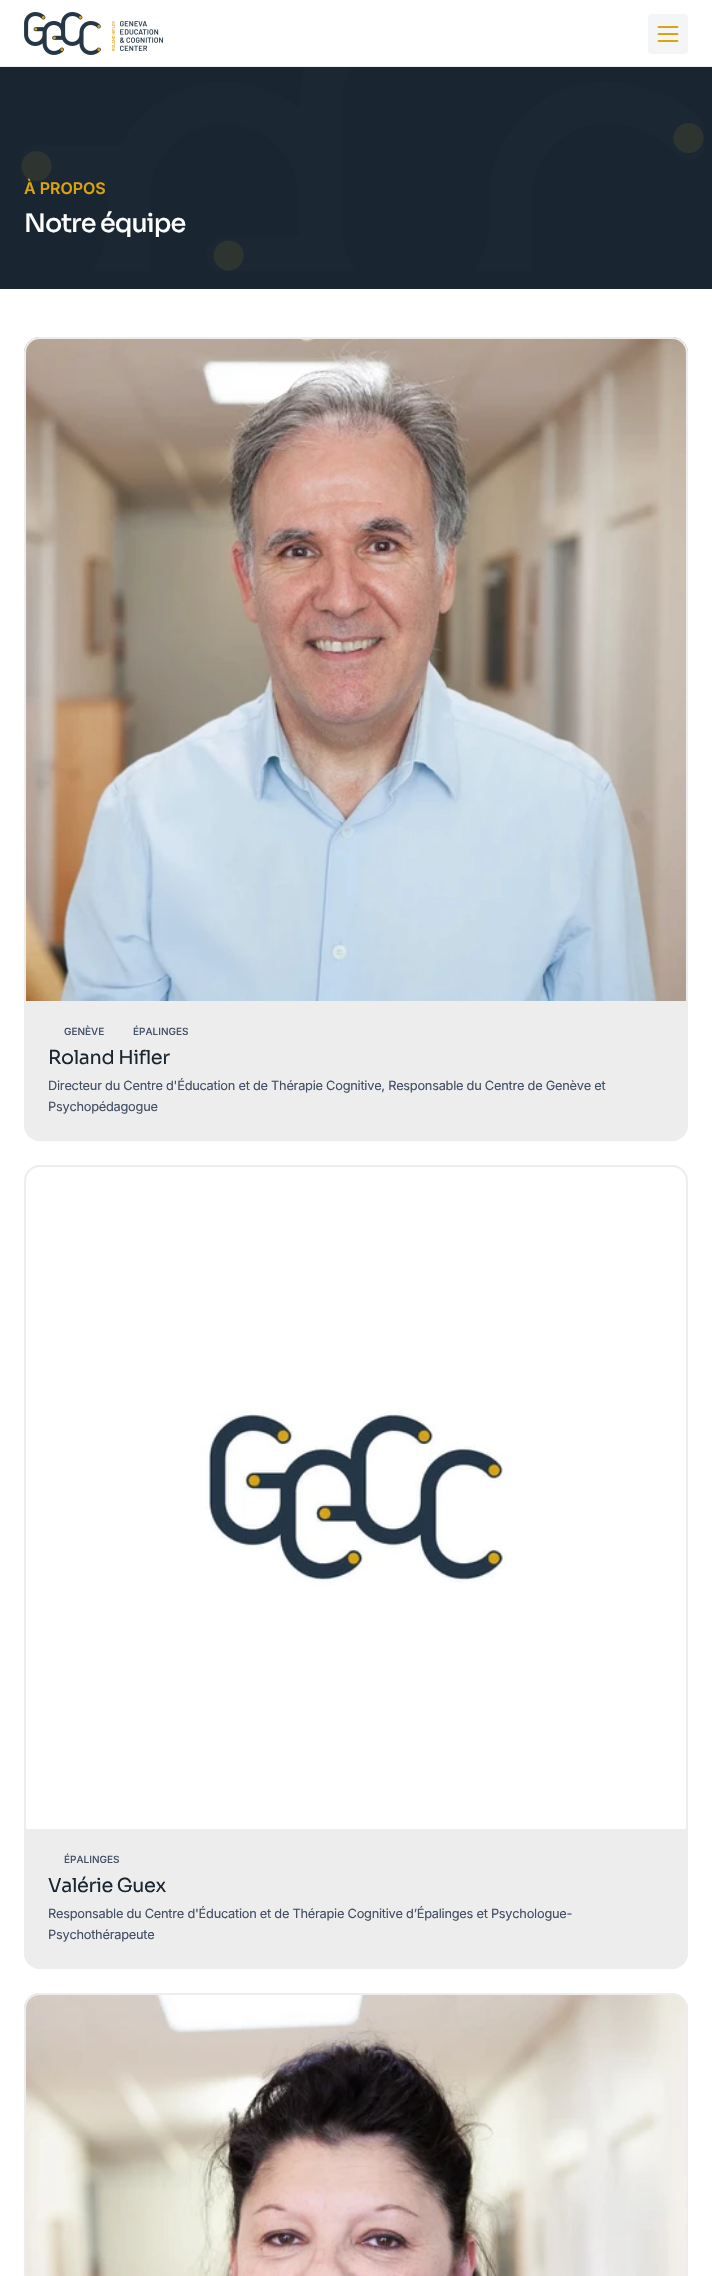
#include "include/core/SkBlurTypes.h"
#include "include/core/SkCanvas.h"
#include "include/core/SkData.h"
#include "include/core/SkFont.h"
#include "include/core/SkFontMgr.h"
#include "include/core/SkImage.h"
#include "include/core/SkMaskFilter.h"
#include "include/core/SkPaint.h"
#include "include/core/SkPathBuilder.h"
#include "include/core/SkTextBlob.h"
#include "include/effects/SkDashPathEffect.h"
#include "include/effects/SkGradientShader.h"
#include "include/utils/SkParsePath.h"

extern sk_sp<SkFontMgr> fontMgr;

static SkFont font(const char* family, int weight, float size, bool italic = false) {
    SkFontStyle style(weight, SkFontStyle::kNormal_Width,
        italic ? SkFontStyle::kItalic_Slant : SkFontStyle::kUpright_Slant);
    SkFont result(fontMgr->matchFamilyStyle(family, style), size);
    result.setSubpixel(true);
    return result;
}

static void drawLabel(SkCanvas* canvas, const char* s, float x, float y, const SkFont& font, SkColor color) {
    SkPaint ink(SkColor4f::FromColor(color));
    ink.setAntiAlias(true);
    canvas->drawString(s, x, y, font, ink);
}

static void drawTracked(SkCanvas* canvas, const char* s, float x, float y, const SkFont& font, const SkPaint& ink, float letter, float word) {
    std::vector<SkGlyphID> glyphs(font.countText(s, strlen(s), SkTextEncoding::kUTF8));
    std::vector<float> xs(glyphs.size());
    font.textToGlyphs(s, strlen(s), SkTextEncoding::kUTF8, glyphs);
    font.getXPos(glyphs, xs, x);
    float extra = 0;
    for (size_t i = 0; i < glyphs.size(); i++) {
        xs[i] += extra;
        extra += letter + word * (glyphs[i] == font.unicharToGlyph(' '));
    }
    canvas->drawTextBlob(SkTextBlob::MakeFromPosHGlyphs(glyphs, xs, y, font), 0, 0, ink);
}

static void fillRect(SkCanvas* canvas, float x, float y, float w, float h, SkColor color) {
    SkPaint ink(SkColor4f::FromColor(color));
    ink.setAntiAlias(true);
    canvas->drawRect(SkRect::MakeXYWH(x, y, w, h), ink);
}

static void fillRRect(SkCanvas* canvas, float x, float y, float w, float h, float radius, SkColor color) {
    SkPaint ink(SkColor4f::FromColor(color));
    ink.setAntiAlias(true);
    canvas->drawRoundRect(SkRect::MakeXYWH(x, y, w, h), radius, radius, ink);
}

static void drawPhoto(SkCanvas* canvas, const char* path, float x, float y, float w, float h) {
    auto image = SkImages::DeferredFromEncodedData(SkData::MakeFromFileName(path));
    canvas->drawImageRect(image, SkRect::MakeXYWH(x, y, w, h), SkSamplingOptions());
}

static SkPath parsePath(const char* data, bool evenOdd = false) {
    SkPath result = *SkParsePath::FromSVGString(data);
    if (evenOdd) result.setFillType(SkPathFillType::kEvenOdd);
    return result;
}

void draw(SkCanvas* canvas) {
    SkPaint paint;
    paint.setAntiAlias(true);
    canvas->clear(0xFFFFFFFF);
    drawPhoto(canvas, "assets/img1.png", 24, 12, 139, 43);
    fillRRect(canvas, 648, 14, 40, 40, 4, 0xFFF4F5F6);
    paint.setStroke(true);
    paint.setStrokeWidth(1.8f);
    paint.setStrokeCap(SkPaint::kRound_Cap);
    paint.setStrokeJoin(SkPaint::kRound_Join);
    paint.setColor(0xFFDBA40F);
    canvas->drawPath(parsePath("M658.5 34H677.5M658.5 27H677.5M658.5 41H677.5"), paint);
    fillRect(canvas, 0, 66, 712, 1, 0xFFE9EFF5);
    fillRect(canvas, 0, 67, 712, 222, 0xFF192631);
    drawPhoto(canvas, "assets/img2.png", 21, 67, 683, 204);
    SkFont font1 = font("Inter", 600, 16);
    drawLabel(canvas, "À PROPOS", 24, 194, font1, 0xFFDBA40F);
    SkFont font2 = font("Sora", 500, 25.5f);
    paint.setStroke(false);
    paint.setColor(0xFFFFFFFF);
    drawTracked(canvas, "Notre équipe", 24, 232, font2, paint, -1, 0);
    fillRRect(canvas, 24, 337, 664, 804, 16, 0xFFEDEDED);
    drawPhoto(canvas, "assets/img3.png", 24, 337, 664, 664);
    paint.setStroke(true);
    paint.setStrokeWidth(2);
    paint.setStrokeCap(SkPaint::kButt_Cap);
    paint.setStrokeJoin(SkPaint::kMiter_Join);
    paint.setColor(0xFFEDEDED);
    canvas->drawRoundRect(SkRect::MakeXYWH(25, 338, 662, 802), 15, 15, paint);
    SkFont font3 = font("Inter", 500, 10);
    drawLabel(canvas, "GENÈVE", 64, 1035, font3, 0xFF434F65);
    drawLabel(canvas, "ÉPALINGES", 133, 1035, font3, 0xFF434F65);
    SkFont font4 = font("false", 400, 19.25f);
    paint.setStroke(false);
    paint.setColor(0xFF192631);
    drawTracked(canvas, "Roland Hifler", 48, 1064, font4, paint, -0.4f, 0);
    SkFont font5 = font("Inter", 400, 12.8f);
    paint.setColor(0xFF434F65);
    drawTracked(canvas, "Directeur du Centre d'Éducation et de Thérapie Cognitive, Responsable du Centre de Genève et", 48, 1090, font5, paint, -0.25f, 0);
    drawTracked(canvas, "Psychopédagogue", 48, 1111, font5, paint, -0.25f, 0);
    fillRRect(canvas, 24, 1165, 664, 804, 16, 0xFFEDEDED);
    drawPhoto(canvas, "assets/img4.png", 24, 1165, 664, 664);
    paint.setStroke(true);
    paint.setColor(0xFFEDEDED);
    canvas->drawRoundRect(SkRect::MakeXYWH(25, 1166, 662, 802), 15, 15, paint);
    drawLabel(canvas, "ÉPALINGES", 64, 1863, font3, 0xFF434F65);
    paint.setStroke(false);
    paint.setColor(0xFF192631);
    drawTracked(canvas, "Valérie Guex", 48, 1892, font4, paint, -0.4f, 0);
    paint.setColor(0xFF434F65);
    drawTracked(canvas, "Responsable du Centre d'Éducation et de Thérapie Cognitive d’Épalinges et Psychologue-", 48, 1918, font5, paint, -0.25f, 0);
    drawTracked(canvas, "Psychothérapeute", 48, 1939, font5, paint, -0.25f, 0);
    drawPhoto(canvas, "assets/img5.png", 24, 1993, 664, 283);
    paint.setStroke(true);
    paint.setColor(0xFFEDEDED);
    canvas->drawRoundRect(SkRect::MakeXYWH(25, 1994, 662, 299), 15, 15, paint);
}
